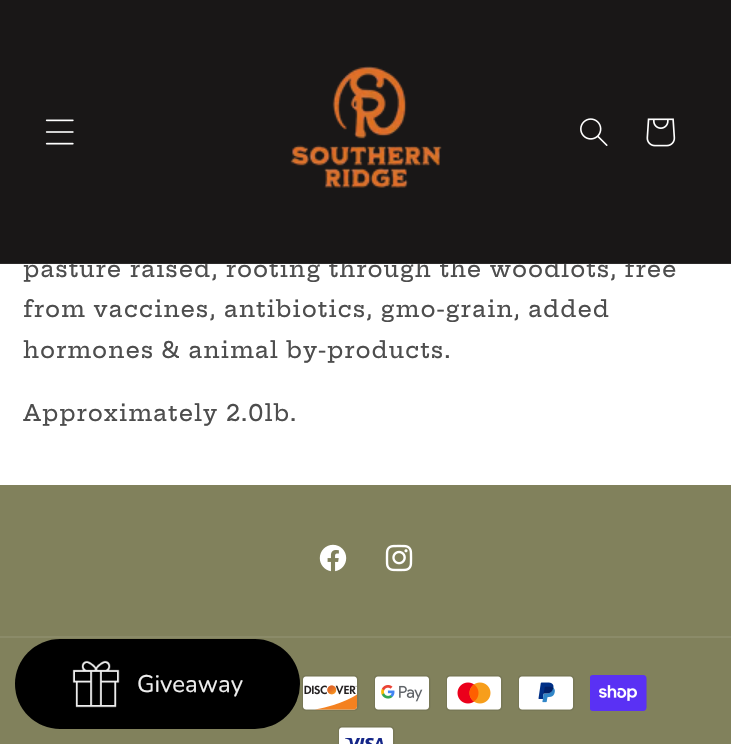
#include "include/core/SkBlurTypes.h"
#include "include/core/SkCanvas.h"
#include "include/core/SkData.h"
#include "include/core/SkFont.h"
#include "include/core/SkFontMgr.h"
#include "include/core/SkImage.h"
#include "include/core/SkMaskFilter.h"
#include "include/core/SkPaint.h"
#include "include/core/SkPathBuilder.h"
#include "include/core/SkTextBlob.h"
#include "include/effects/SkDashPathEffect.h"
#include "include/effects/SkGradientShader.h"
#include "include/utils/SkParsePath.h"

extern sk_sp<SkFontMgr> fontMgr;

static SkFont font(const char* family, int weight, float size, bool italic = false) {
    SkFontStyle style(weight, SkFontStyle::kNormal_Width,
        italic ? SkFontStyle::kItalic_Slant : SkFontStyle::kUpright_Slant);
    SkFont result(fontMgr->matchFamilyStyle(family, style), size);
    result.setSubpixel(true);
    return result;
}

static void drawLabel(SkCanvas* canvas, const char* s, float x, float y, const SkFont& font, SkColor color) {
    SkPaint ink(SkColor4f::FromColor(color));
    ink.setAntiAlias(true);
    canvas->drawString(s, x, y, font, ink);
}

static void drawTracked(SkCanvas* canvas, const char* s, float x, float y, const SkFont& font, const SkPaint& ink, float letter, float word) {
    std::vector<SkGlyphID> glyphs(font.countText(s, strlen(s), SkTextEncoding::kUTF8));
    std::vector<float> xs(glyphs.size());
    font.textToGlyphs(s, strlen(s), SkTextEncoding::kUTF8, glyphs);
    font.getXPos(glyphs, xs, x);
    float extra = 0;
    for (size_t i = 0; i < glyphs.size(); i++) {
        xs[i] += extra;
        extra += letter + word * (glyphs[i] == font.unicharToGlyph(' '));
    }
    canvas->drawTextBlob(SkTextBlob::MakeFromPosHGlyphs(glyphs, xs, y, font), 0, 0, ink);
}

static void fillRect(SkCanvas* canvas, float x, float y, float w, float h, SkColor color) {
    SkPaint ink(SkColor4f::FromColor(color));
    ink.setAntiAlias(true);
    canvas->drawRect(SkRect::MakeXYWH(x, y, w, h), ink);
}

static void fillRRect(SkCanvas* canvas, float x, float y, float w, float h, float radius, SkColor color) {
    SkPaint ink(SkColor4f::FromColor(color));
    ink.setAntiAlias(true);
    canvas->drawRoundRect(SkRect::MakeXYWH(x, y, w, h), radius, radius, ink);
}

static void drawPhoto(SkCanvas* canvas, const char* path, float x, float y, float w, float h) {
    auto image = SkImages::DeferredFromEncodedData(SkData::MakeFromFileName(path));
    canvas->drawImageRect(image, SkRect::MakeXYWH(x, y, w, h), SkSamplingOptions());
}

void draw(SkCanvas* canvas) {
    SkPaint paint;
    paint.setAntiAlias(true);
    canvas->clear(0xFFFFFFFF);
    SkFont font1 = font("Hepta Slab", 500, 22.5f);
    paint.setColor(0xFF4D4D4D);
    drawTracked(canvas, "pasture raised, rooting through the woodlots, free", 23, 277, font1, paint, 0.9f, 0);
    fillRect(canvas, 0, 0, 731, 264, 0xFF191717);
    fillRect(canvas, 0, 263, 731, 2, 0x14FFFFFF);
    drawPhoto(canvas, "assets/img1.png", 45, 119, 29, 26);
    drawPhoto(canvas, "assets/img2.png", 290, 66, 152, 122);
    drawPhoto(canvas, "assets/img3.png", 580, 118, 28, 28);
    drawPhoto(canvas, "assets/img4.png", 646, 118, 30, 29);
    drawTracked(canvas, "from vaccines, antibiotics, gmo-grain, added", 23, 317, font1, paint, 0.9f, 0);
    drawTracked(canvas, "hormones & animal by-products.", 23, 358, font1, paint, 0.9f, 0);
    drawTracked(canvas, "Approximately 2.0lb.", 23, 421, font1, paint, 0.9f, 0);
    fillRect(canvas, 0, 485, 731, 259, 0xFF81815C);
    drawPhoto(canvas, "assets/img5.png", 319, 544, 28, 28);
    drawPhoto(canvas, "assets/img6.png", 385, 544, 28, 28);
    fillRect(canvas, 0, 636, 731, 2, 0xFF8B8B69);
    drawPhoto(canvas, "assets/img7.png", 302, 675, 57, 36);
    drawPhoto(canvas, "assets/img8.png", 374, 675, 57, 36);
    drawPhoto(canvas, "assets/img9.png", 446, 675, 57, 36);
    drawPhoto(canvas, "assets/img10.png", 518, 675, 57, 36);
    drawPhoto(canvas, "assets/img11.png", 590, 675, 57, 36);
    drawPhoto(canvas, "assets/img12.png", 338, 726, 57, 18);
    fillRRect(canvas, 15, 639, 285, 90, 45, 0xFF000000);
    drawPhoto(canvas, "assets/img13.png", 72, 660, 48, 48);
    SkFont font2 = font("Nunito", 400, 24);
    drawLabel(canvas, "Giveaway", 137, 692, font2, 0xFFEEEEEE);
}
